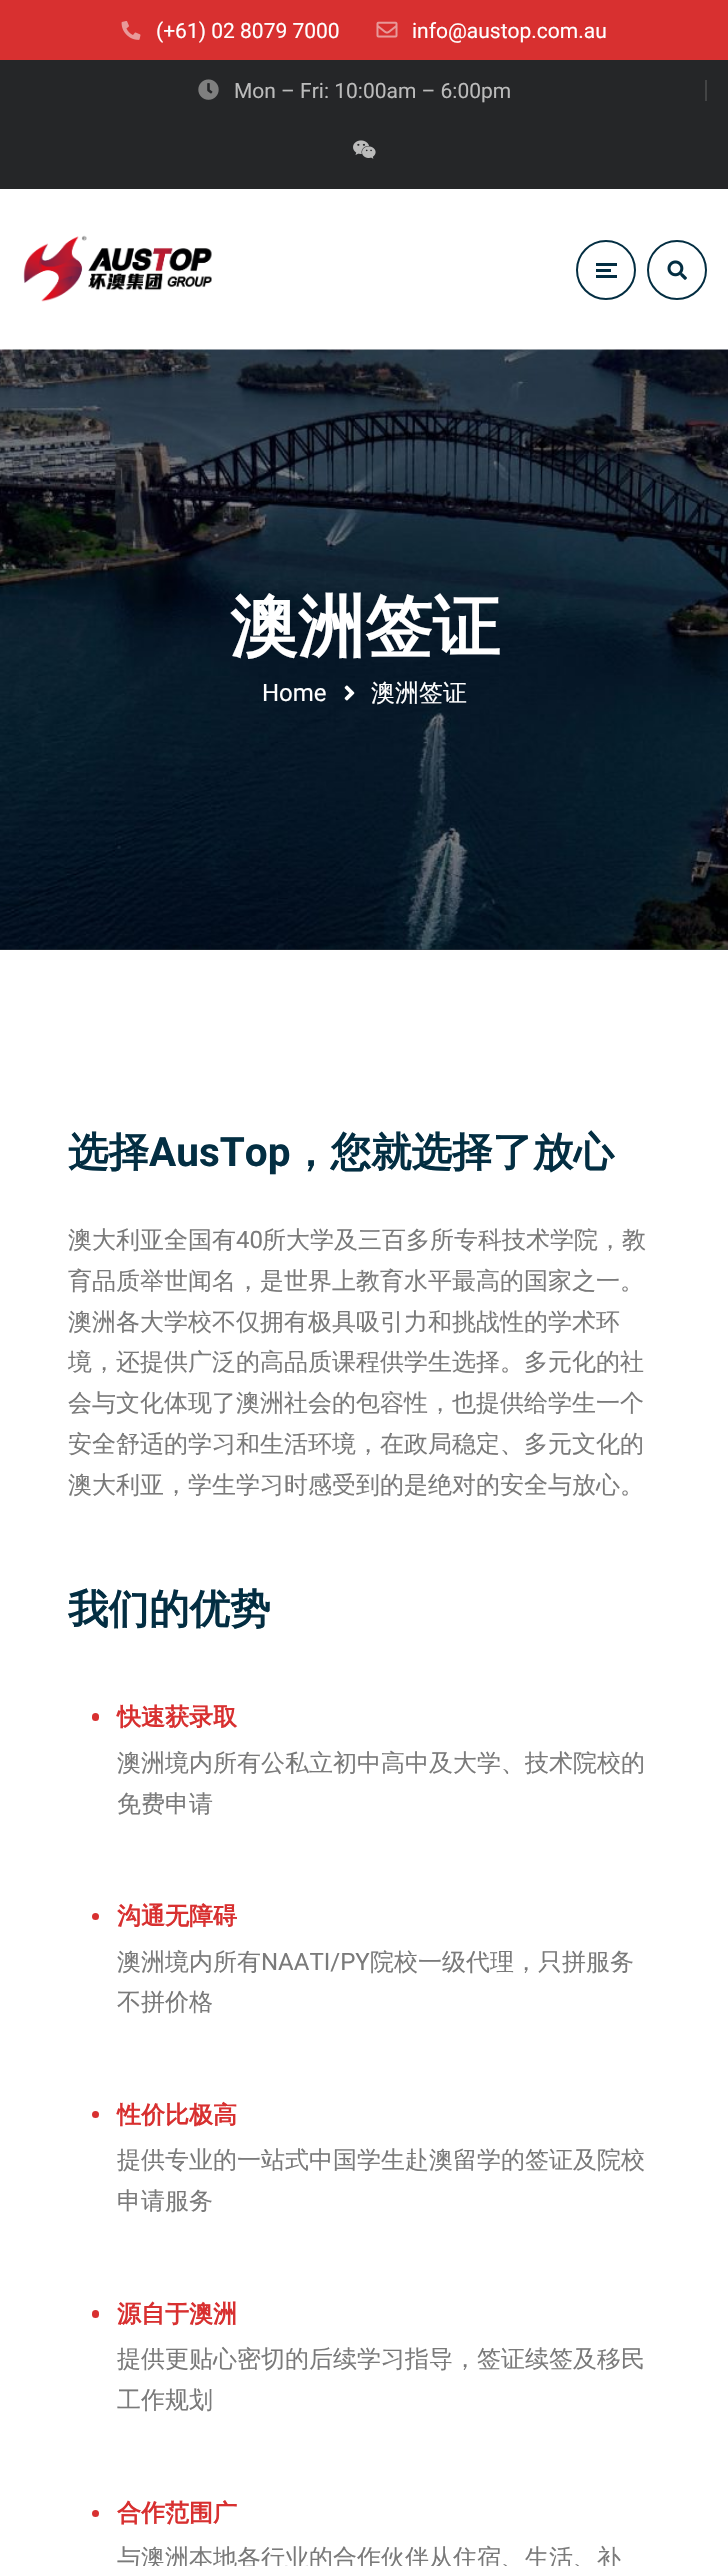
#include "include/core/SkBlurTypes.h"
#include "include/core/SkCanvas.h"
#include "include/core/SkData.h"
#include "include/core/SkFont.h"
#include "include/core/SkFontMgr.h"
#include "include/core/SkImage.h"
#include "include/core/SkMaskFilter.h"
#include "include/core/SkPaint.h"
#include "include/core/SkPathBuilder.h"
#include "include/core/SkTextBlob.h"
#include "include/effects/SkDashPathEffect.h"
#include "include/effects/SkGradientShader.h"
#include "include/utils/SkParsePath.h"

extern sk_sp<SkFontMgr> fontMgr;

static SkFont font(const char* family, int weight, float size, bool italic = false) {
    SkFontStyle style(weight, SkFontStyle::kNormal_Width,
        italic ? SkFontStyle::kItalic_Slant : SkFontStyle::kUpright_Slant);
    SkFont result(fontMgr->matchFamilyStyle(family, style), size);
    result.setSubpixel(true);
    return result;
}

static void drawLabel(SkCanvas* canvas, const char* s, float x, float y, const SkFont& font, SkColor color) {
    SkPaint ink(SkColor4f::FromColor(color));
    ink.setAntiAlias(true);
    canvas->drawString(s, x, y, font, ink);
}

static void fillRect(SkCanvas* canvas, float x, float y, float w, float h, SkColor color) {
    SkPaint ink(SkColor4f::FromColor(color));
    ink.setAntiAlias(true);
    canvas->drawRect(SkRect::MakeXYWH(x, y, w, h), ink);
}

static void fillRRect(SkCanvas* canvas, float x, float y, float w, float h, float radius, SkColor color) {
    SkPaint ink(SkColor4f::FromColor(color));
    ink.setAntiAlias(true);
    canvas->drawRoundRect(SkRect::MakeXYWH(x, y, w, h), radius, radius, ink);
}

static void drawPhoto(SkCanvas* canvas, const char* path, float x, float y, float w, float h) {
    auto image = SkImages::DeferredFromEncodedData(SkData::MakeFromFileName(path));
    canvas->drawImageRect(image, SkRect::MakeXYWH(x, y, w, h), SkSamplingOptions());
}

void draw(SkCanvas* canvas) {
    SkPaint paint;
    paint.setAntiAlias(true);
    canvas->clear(0xFFFFFFFF);
    fillRect(canvas, 0, 60, 728, 129, 0xFF252628);
    fillRect(canvas, 0, 0, 728, 60, 0xFFD83030);
    drawPhoto(canvas, "assets/img1.png", 121, 21, 20, 19);
    SkFont font1 = font("Roboto", 400, 21);
    drawLabel(canvas, "(+61) 02 8079 7000", 156, 38, font1, 0xFFFFFFFF);
    drawPhoto(canvas, "assets/img2.png", 376, 21, 22, 17);
    drawLabel(canvas, "info@austop.com.au", 412, 38, font1, 0xFFFFFFFF);
    drawPhoto(canvas, "assets/img3.png", 198, 79, 21, 21);
    drawLabel(canvas, "Mon – Fri: 10:00am – 6:00pm", 234, 98, font1, 0xFFBBBBBB);
    fillRect(canvas, 705, 80, 2, 21, 0xFF434445);
    drawPhoto(canvas, "assets/img4.png", 353, 140, 23, 19);
    drawPhoto(canvas, "assets/img5.png", 23, 235, 189, 67);
    paint.setStroke(true);
    paint.setStrokeWidth(2);
    paint.setColor(0xFF032E42);
    canvas->drawCircle(606, 270, 29, paint);
    fillRect(canvas, 596, 263, 21, 3, 0xFF032E42);
    fillRect(canvas, 596, 269, 15, 3, 0xFF032E42);
    fillRect(canvas, 596, 275, 21, 3, 0xFF032E42);
    canvas->drawCircle(677, 270, 29, paint);
    drawPhoto(canvas, "assets/img6.png", 667, 260, 20, 20);
    fillRect(canvas, 0, 949, 728, 1, 0xFF343A40);
    drawPhoto(canvas, "assets/img7.png", 0, 349, 728, 601);
    SkFont font2 = font("WenQuanYi Zen Hei", 700, 67.5f);
    drawLabel(canvas, "澳洲签证", 230, 650, font2, 0xFFFFFFFF);
    SkFont font3 = font("Roboto", 400, 24);
    drawLabel(canvas, "Home", 262, 701, font3, 0xFFFFFFFF);
    drawPhoto(canvas, "assets/img8.png", 344, 685, 11, 16);
    SkFont font4 = font("WenQuanYi Zen Hei", 500, 24);
    drawLabel(canvas, "澳洲签证", 371, 701, font4, 0xFFFFFFFF);
    SkFont font5 = font("WenQuanYi Zen Hei", 700, 40.5f);
    drawLabel(canvas, "选择", 68, 1166, font5, 0xFF032E42);
    SkFont font6 = font("Roboto", 700, 40.5f);
    drawLabel(canvas, "AusTop", 149, 1166, font6, 0xFF032E42);
    drawLabel(canvas, "，您就选择了放心", 290, 1166, font5, 0xFF032E42);
    drawLabel(canvas, "澳大利亚全国有", 68, 1248, font4, 0xFF7A7A7A);
    drawLabel(canvas, "40", 236, 1248, font3, 0xFF7A7A7A);
    drawLabel(canvas, "所大学及三百多所专科技术学院，教", 262, 1248, font4, 0xFF7A7A7A);
    drawLabel(canvas, "育品质举世闻名，是世界上教育水平最高的国家之一。", 68, 1289, font4, 0xFF7A7A7A);
    drawLabel(canvas, "澳洲各大学校不仅拥有极具吸引力和挑战性的学术环", 68, 1330, font4, 0xFF7A7A7A);
    drawLabel(canvas, "境，还提供广泛的高品质课程供学生选择。多元化的社", 68, 1370, font4, 0xFF7A7A7A);
    drawLabel(canvas, "会与文化体现了澳洲社会的包容性，也提供给学生一个", 68, 1411, font4, 0xFF7A7A7A);
    drawLabel(canvas, "安全舒适的学习和生活环境，在政局稳定、多元文化的", 68, 1452, font4, 0xFF7A7A7A);
    drawLabel(canvas, "澳大利亚，学生学习时感受到的是绝对的安全与放心。", 68, 1493, font4, 0xFF7A7A7A);
    drawLabel(canvas, "我们的优势", 68, 1623, font5, 0xFF032E42);
    fillRRect(canvas, 92, 1713, 7, 8, 3.5f, 0xFFD83030);
    SkFont font7 = font("WenQuanYi Zen Hei", 700, 24);
    drawLabel(canvas, "快速获录取", 117, 1725, font7, 0xFFD83030);
    drawLabel(canvas, "澳洲境内所有公私立初中高中及大学、技术院校的", 117, 1771, font4, 0xFF7A7A7A);
    drawLabel(canvas, "免费申请", 117, 1812, font4, 0xFF7A7A7A);
    paint.setStroke(false);
    paint.setColor(0xFFD83030);
    canvas->drawCircle(95.5f, 1916.5f, 3.5f, paint);
    drawLabel(canvas, "沟通无障碍", 117, 1924, font7, 0xFFD83030);
    drawLabel(canvas, "澳洲境内所有", 117, 1970, font4, 0xFF7A7A7A);
    drawLabel(canvas, "NAATI/PY", 261, 1970, font3, 0xFF7A7A7A);
    drawLabel(canvas, "院校一级代理，只拼服务", 370, 1970, font4, 0xFF7A7A7A);
    drawLabel(canvas, "不拼价格", 117, 2010, font4, 0xFF7A7A7A);
    canvas->drawCircle(95.5f, 2114.5f, 3.5f, paint);
    drawLabel(canvas, "性价比极高", 117, 2123, font7, 0xFFD83030);
    drawLabel(canvas, "提供专业的一站式中国学生赴澳留学的签证及院校", 117, 2168, font4, 0xFF7A7A7A);
    drawLabel(canvas, "申请服务", 117, 2209, font4, 0xFF7A7A7A);
    fillRRect(canvas, 92, 2310, 7, 8, 3.5f, 0xFFD83030);
    drawLabel(canvas, "源自于澳洲", 117, 2322, font7, 0xFFD83030);
    drawLabel(canvas, "提供更贴心密切的后续学习指导，签证续签及移民", 117, 2367, font4, 0xFF7A7A7A);
    drawLabel(canvas, "工作规划", 117, 2408, font4, 0xFF7A7A7A);
    canvas->drawCircle(95.5f, 2513.5f, 3.5f, paint);
    drawLabel(canvas, "合作范围广", 117, 2521, font7, 0xFFD83030);
    drawLabel(canvas, "与澳洲本地各行业的合作伙伴从住宿、生活、补", 117, 2566, font4, 0xFF7A7A7A);
}
